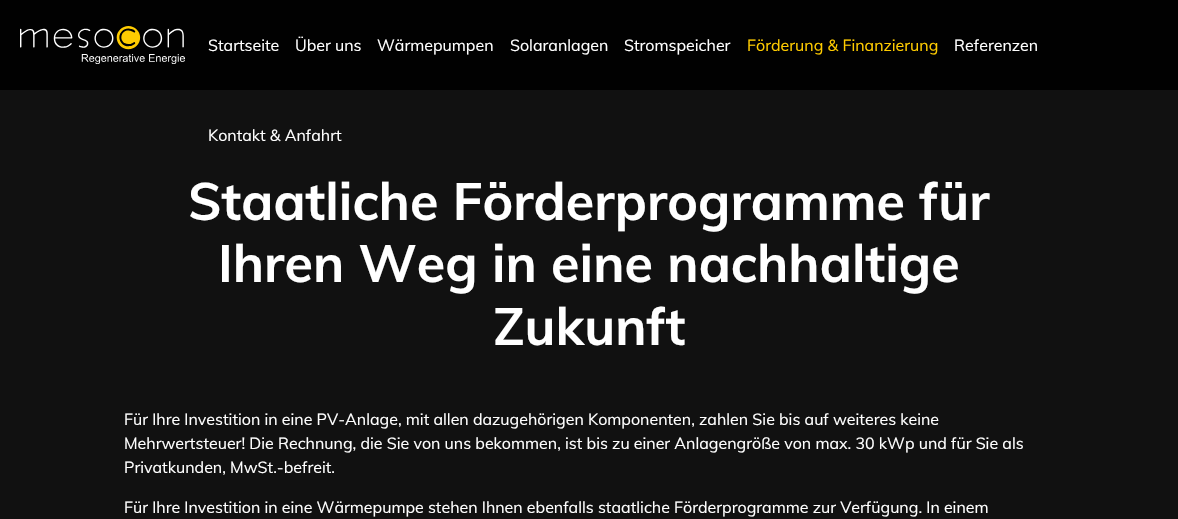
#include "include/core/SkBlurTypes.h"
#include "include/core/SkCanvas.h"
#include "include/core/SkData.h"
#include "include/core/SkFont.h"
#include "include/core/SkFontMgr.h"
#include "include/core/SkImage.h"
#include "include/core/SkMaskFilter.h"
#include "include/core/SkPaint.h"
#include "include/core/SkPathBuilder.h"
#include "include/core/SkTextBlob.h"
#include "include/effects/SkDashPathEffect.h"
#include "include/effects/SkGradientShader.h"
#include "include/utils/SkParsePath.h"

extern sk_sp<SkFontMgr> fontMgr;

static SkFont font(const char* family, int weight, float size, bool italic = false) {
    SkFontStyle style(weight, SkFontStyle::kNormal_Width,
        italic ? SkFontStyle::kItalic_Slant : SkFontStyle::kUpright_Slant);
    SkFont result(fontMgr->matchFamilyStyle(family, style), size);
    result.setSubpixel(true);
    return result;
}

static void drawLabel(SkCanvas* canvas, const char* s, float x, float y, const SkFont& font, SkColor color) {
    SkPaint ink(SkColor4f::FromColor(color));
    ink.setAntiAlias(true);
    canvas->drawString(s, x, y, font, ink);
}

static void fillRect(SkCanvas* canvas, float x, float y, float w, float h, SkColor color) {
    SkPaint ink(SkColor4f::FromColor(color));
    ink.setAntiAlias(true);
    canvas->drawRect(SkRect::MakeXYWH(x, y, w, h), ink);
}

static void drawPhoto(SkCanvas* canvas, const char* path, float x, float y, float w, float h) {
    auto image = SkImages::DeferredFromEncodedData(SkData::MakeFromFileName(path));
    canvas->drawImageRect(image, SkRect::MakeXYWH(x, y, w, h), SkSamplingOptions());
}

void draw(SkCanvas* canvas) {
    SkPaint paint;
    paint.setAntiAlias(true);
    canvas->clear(0xFF111111);
    fillRect(canvas, 0, 0, 1178, 90, 0xFF010101);
    drawPhoto(canvas, "assets/img1.png", 20, 26, 165, 38);
    SkFont font1 = font("Muli", 400, 16);
    drawLabel(canvas, "Startseite", 208, 51, font1, 0xFFFFFFFF);
    drawLabel(canvas, "Über uns", 295, 51, font1, 0xFFFFFFFF);
    drawLabel(canvas, "Wärmepumpen", 377, 51, font1, 0xFFFFFFFF);
    drawLabel(canvas, "Solaranlagen", 510, 51, font1, 0xFFFFFFFF);
    drawLabel(canvas, "Stromspeicher", 624, 51, font1, 0xFFFFFFFF);
    drawLabel(canvas, "Förderung & Finanzierung", 747, 51, font1, 0xFFFFCC00);
    drawLabel(canvas, "Referenzen", 954, 51, font1, 0xFFFFFFFF);
    drawLabel(canvas, "Kontakt & Anfahrt", 208, 141, font1, 0xFFFFFFFF);
    SkFont font2 = font("Muli", 700, 52);
    drawLabel(canvas, "Staatliche Förderprogramme für", 188, 220, font2, 0xFFFFFFFF);
    drawLabel(canvas, "Ihren Weg in eine nachhaltige", 218, 282, font2, 0xFFFFFFFF);
    drawLabel(canvas, "Zukunft", 493, 345, font2, 0xFFFFFFFF);
    drawLabel(canvas, "Für Ihre Investition in eine PV-Anlage, mit allen dazugehörigen Komponenten, zahlen Sie bis auf weiteres keine", 124, 425, font1, 0xFFFFFFFF);
    drawLabel(canvas, "Mehrwertsteuer! Die Rechnung, die Sie von uns bekommen, ist bis zu einer Anlagengröße von max. 30 kWp und für Sie als", 124, 449, font1, 0xFFFFFFFF);
    drawLabel(canvas, "Privatkunden, MwSt.-befreit.", 124, 473, font1, 0xFFFFFFFF);
    drawLabel(canvas, "Für Ihre Investition in eine Wärmepumpe stehen Ihnen ebenfalls staatliche Förderprogramme zur Verfügung. In einem", 124, 513, font1, 0xFFFFFFFF);
}
